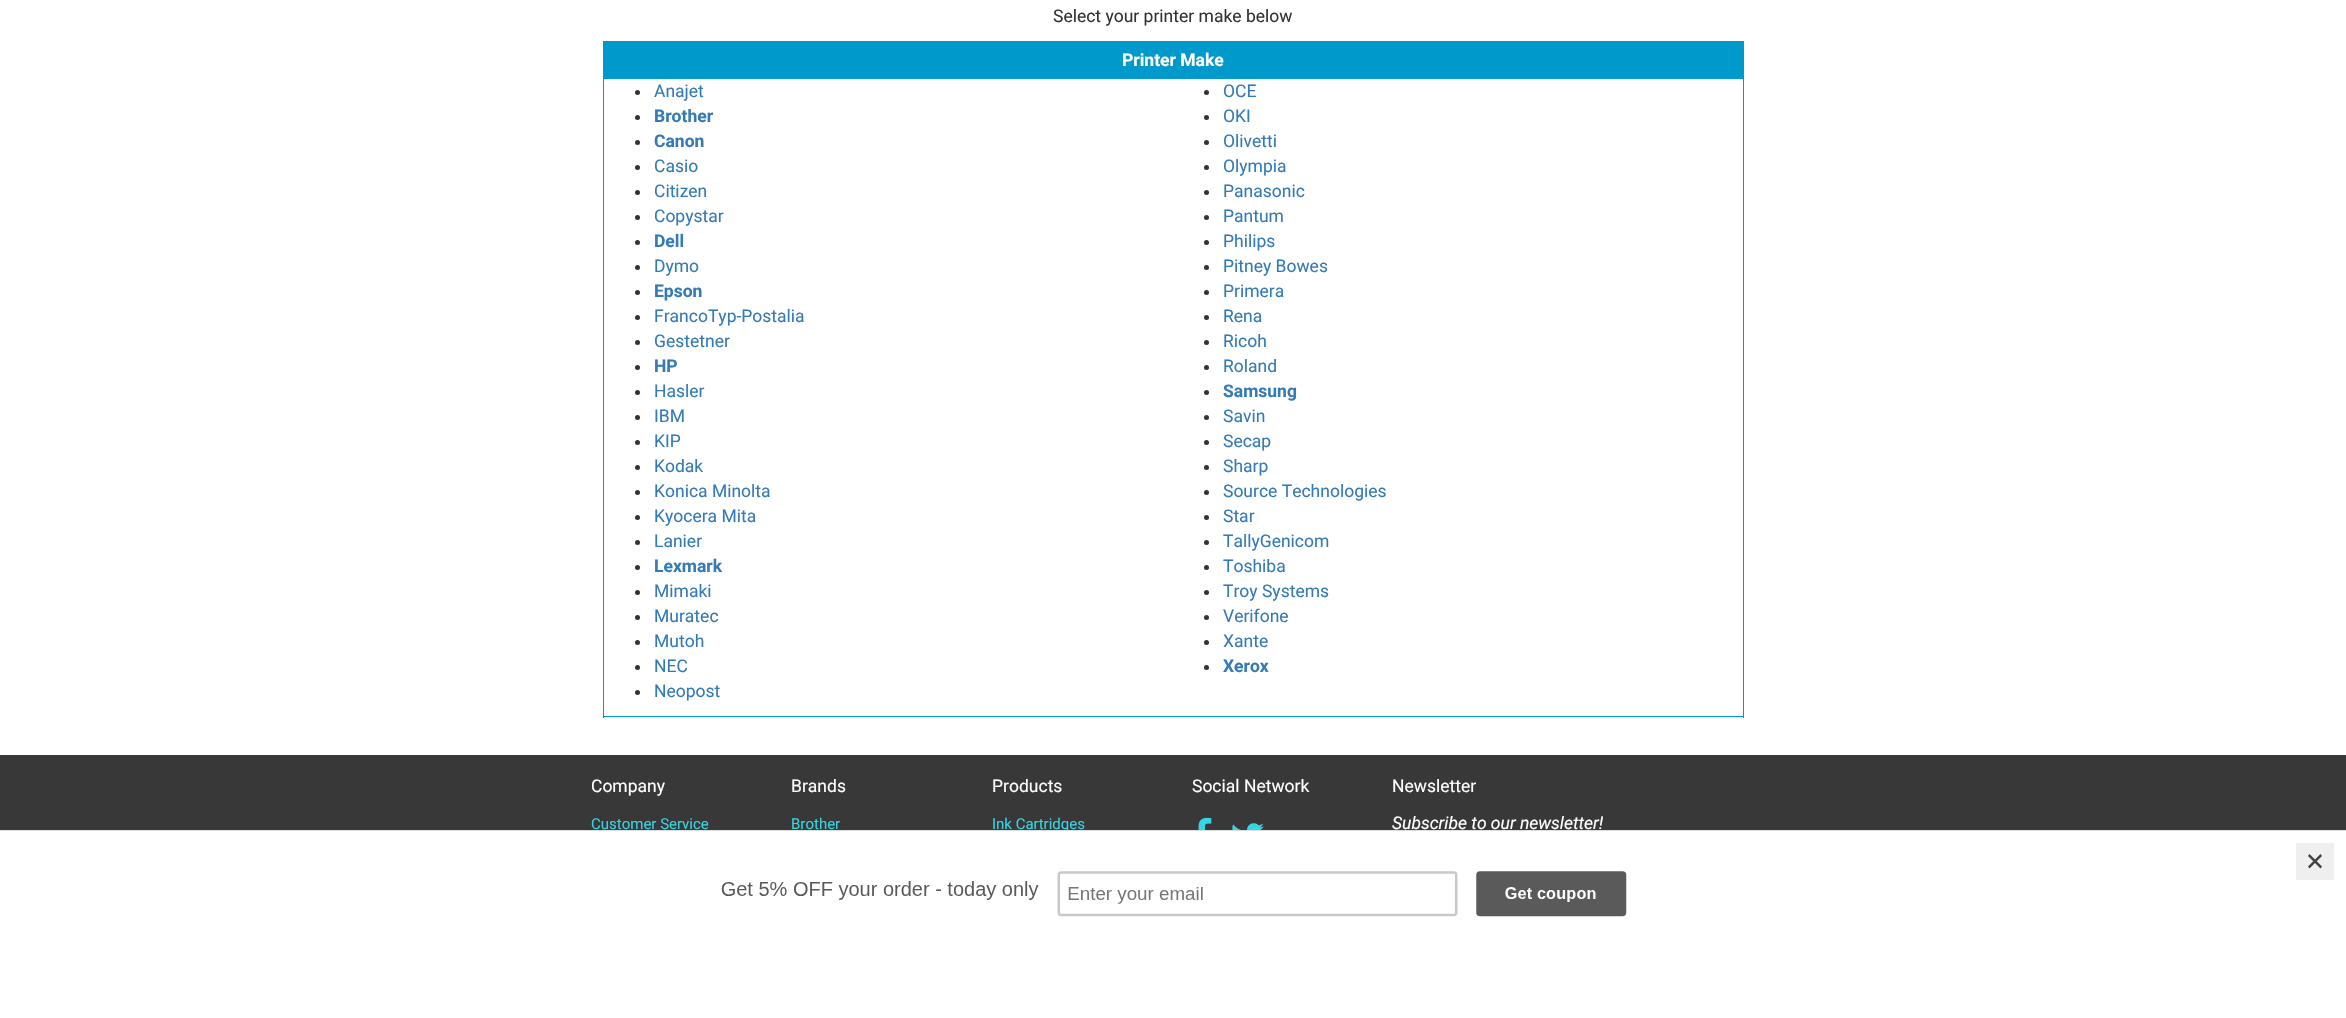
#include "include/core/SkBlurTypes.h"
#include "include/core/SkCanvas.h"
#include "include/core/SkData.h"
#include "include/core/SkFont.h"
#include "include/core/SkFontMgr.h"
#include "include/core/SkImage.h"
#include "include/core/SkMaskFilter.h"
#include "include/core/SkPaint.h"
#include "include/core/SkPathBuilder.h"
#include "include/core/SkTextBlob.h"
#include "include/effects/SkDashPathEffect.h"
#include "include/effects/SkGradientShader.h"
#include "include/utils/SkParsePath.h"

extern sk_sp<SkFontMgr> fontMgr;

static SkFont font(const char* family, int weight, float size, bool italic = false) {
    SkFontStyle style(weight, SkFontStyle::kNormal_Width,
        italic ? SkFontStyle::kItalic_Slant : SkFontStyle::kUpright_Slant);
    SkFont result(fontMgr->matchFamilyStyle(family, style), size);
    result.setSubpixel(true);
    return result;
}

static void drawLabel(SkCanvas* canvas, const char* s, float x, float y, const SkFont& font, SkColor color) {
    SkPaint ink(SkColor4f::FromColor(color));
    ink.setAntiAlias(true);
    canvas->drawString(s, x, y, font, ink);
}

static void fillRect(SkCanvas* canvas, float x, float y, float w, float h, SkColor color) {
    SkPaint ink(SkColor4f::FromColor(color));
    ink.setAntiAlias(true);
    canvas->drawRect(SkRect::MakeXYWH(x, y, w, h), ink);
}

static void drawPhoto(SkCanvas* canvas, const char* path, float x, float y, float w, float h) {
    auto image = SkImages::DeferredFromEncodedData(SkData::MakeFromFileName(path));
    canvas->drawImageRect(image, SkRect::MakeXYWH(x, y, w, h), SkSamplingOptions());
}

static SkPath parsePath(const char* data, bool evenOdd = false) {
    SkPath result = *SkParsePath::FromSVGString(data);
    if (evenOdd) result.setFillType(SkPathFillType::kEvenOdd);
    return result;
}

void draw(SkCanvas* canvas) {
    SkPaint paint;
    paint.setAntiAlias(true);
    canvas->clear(0xFFFFFFFF);
    SkFont font1 = font("Roboto", 400, 17.5f);
    drawLabel(canvas, "Select your printer make below", 1053, 22, font1, 0xFF333333);
    fillRect(canvas, 603, 41, 1141, 38, 0xFF0099CC);
    SkFont font2 = font("Roboto", 700, 17.5f);
    drawLabel(canvas, "Printer Make", 1122, 66, font2, 0xFFFFFFFF);
    fillRect(canvas, 1743, 78, 1, 640, 0xFF0099CC);
    fillRect(canvas, 603, 716, 1141, 1, 0xFF0099CC);
    fillRect(canvas, 603, 78, 1, 640, 0xFF0099CC);
    paint.setColor(0xFF333333);
    canvas->drawCircle(637.5f, 92.5f, 2.5f, paint);
    drawLabel(canvas, "Anajet", 654, 97, font1, 0xFF337AB7);
    canvas->drawCircle(637.5f, 117.5f, 2.5f, paint);
    drawLabel(canvas, "Brother", 654, 122, font2, 0xFF337AB7);
    canvas->drawCircle(637.5f, 142.5f, 2.5f, paint);
    drawLabel(canvas, "Canon", 654, 147, font2, 0xFF337AB7);
    canvas->drawCircle(637.5f, 167.5f, 2.5f, paint);
    drawLabel(canvas, "Casio", 654, 172, font1, 0xFF337AB7);
    canvas->drawCircle(637.5f, 192.5f, 2.5f, paint);
    drawLabel(canvas, "Citizen", 654, 197, font1, 0xFF337AB7);
    canvas->drawCircle(637.5f, 217.5f, 2.5f, paint);
    drawLabel(canvas, "Copystar", 654, 222, font1, 0xFF337AB7);
    canvas->drawCircle(637.5f, 242.5f, 2.5f, paint);
    drawLabel(canvas, "Dell", 654, 247, font2, 0xFF337AB7);
    canvas->drawCircle(637.5f, 267.5f, 2.5f, paint);
    drawLabel(canvas, "Dymo", 654, 272, font1, 0xFF337AB7);
    canvas->drawCircle(637.5f, 292.5f, 2.5f, paint);
    drawLabel(canvas, "Epson", 654, 297, font2, 0xFF337AB7);
    canvas->drawCircle(637.5f, 317.5f, 2.5f, paint);
    drawLabel(canvas, "FrancoTyp-Postalia", 654, 322, font1, 0xFF337AB7);
    canvas->drawCircle(637.5f, 342.5f, 2.5f, paint);
    drawLabel(canvas, "Gestetner", 654, 347, font1, 0xFF337AB7);
    canvas->drawCircle(637.5f, 367.5f, 2.5f, paint);
    drawLabel(canvas, "HP", 654, 372, font2, 0xFF337AB7);
    canvas->drawCircle(637.5f, 392.5f, 2.5f, paint);
    drawLabel(canvas, "Hasler", 654, 397, font1, 0xFF337AB7);
    canvas->drawCircle(637.5f, 417.5f, 2.5f, paint);
    drawLabel(canvas, "IBM", 654, 422, font1, 0xFF337AB7);
    canvas->drawCircle(637.5f, 442.5f, 2.5f, paint);
    drawLabel(canvas, "KIP", 654, 447, font1, 0xFF337AB7);
    canvas->drawCircle(637.5f, 467.5f, 2.5f, paint);
    drawLabel(canvas, "Kodak", 654, 472, font1, 0xFF337AB7);
    canvas->drawCircle(637.5f, 492.5f, 2.5f, paint);
    drawLabel(canvas, "Konica Minolta", 654, 497, font1, 0xFF337AB7);
    canvas->drawCircle(637.5f, 517.5f, 2.5f, paint);
    drawLabel(canvas, "Kyocera Mita", 654, 522, font1, 0xFF337AB7);
    canvas->drawCircle(637.5f, 542.5f, 2.5f, paint);
    drawLabel(canvas, "Lanier", 654, 547, font1, 0xFF337AB7);
    canvas->drawCircle(637.5f, 567.5f, 2.5f, paint);
    drawLabel(canvas, "Lexmark", 654, 572, font2, 0xFF337AB7);
    canvas->drawCircle(637.5f, 592.5f, 2.5f, paint);
    drawLabel(canvas, "Mimaki", 654, 597, font1, 0xFF337AB7);
    canvas->drawCircle(637.5f, 617.5f, 2.5f, paint);
    drawLabel(canvas, "Muratec", 654, 622, font1, 0xFF337AB7);
    canvas->drawCircle(637.5f, 642.5f, 2.5f, paint);
    drawLabel(canvas, "Mutoh", 654, 647, font1, 0xFF337AB7);
    canvas->drawCircle(637.5f, 667.5f, 2.5f, paint);
    drawLabel(canvas, "NEC", 654, 672, font1, 0xFF337AB7);
    canvas->drawCircle(637.5f, 692.5f, 2.5f, paint);
    drawLabel(canvas, "Neopost", 654, 697, font1, 0xFF337AB7);
    canvas->drawCircle(1206.5f, 92.5f, 2.5f, paint);
    drawLabel(canvas, "OCE", 1223, 97, font1, 0xFF337AB7);
    canvas->drawCircle(1206.5f, 117.5f, 2.5f, paint);
    drawLabel(canvas, "OKI", 1223, 122, font1, 0xFF337AB7);
    canvas->drawCircle(1206.5f, 142.5f, 2.5f, paint);
    drawLabel(canvas, "Olivetti", 1223, 147, font1, 0xFF337AB7);
    canvas->drawCircle(1206.5f, 167.5f, 2.5f, paint);
    drawLabel(canvas, "Olympia", 1223, 172, font1, 0xFF337AB7);
    canvas->drawCircle(1206.5f, 192.5f, 2.5f, paint);
    drawLabel(canvas, "Panasonic", 1223, 197, font1, 0xFF337AB7);
    canvas->drawCircle(1206.5f, 217.5f, 2.5f, paint);
    drawLabel(canvas, "Pantum", 1223, 222, font1, 0xFF337AB7);
    canvas->drawCircle(1206.5f, 242.5f, 2.5f, paint);
    drawLabel(canvas, "Philips", 1223, 247, font1, 0xFF337AB7);
    canvas->drawCircle(1206.5f, 267.5f, 2.5f, paint);
    drawLabel(canvas, "Pitney Bowes", 1223, 272, font1, 0xFF337AB7);
    canvas->drawCircle(1206.5f, 292.5f, 2.5f, paint);
    drawLabel(canvas, "Primera", 1223, 297, font1, 0xFF337AB7);
    canvas->drawCircle(1206.5f, 317.5f, 2.5f, paint);
    drawLabel(canvas, "Rena", 1223, 322, font1, 0xFF337AB7);
    canvas->drawCircle(1206.5f, 342.5f, 2.5f, paint);
    drawLabel(canvas, "Ricoh", 1223, 347, font1, 0xFF337AB7);
    canvas->drawCircle(1206.5f, 367.5f, 2.5f, paint);
    drawLabel(canvas, "Roland", 1223, 372, font1, 0xFF337AB7);
    canvas->drawCircle(1206.5f, 392.5f, 2.5f, paint);
    drawLabel(canvas, "Samsung", 1223, 397, font2, 0xFF337AB7);
    canvas->drawCircle(1206.5f, 417.5f, 2.5f, paint);
    drawLabel(canvas, "Savin", 1223, 422, font1, 0xFF337AB7);
    canvas->drawCircle(1206.5f, 442.5f, 2.5f, paint);
    drawLabel(canvas, "Secap", 1223, 447, font1, 0xFF337AB7);
    canvas->drawCircle(1206.5f, 467.5f, 2.5f, paint);
    drawLabel(canvas, "Sharp", 1223, 472, font1, 0xFF337AB7);
    canvas->drawCircle(1206.5f, 492.5f, 2.5f, paint);
    drawLabel(canvas, "Source Technologies", 1223, 497, font1, 0xFF337AB7);
    canvas->drawCircle(1206.5f, 517.5f, 2.5f, paint);
    drawLabel(canvas, "Star", 1223, 522, font1, 0xFF337AB7);
    canvas->drawCircle(1206.5f, 542.5f, 2.5f, paint);
    drawLabel(canvas, "TallyGenicom", 1223, 547, font1, 0xFF337AB7);
    canvas->drawCircle(1206.5f, 567.5f, 2.5f, paint);
    drawLabel(canvas, "Toshiba", 1223, 572, font1, 0xFF337AB7);
    canvas->drawCircle(1206.5f, 592.5f, 2.5f, paint);
    drawLabel(canvas, "Troy Systems", 1223, 597, font1, 0xFF337AB7);
    canvas->drawCircle(1206.5f, 617.5f, 2.5f, paint);
    drawLabel(canvas, "Verifone", 1223, 622, font1, 0xFF337AB7);
    canvas->drawCircle(1206.5f, 642.5f, 2.5f, paint);
    drawLabel(canvas, "Xante", 1223, 647, font1, 0xFF337AB7);
    canvas->drawCircle(1206.5f, 667.5f, 2.5f, paint);
    drawLabel(canvas, "Xerox", 1223, 672, font2, 0xFF337AB7);
    fillRect(canvas, 0, 755, 2346, 75, 0xFF383838);
    drawLabel(canvas, "Company", 591, 792, font1, 0xFFFFFFFF);
    SkFont font3 = font("Roboto", 400, 15);
    drawLabel(canvas, "Customer Service", 591, 829, font3, 0xFF34D5E4);
    drawLabel(canvas, "Brands", 791, 792, font1, 0xFFFFFFFF);
    drawLabel(canvas, "Brother", 791, 829, font3, 0xFF34D5E4);
    drawLabel(canvas, "Products", 992, 792, font1, 0xFFFFFFFF);
    drawLabel(canvas, "Ink Cartridges", 992, 829, font3, 0xFF34D5E4);
    drawLabel(canvas, "Social Network", 1192, 792, font1, 0xFFFFFFFF);
    drawPhoto(canvas, "assets/img1.png", 1198, 817, 14, 13);
    drawPhoto(canvas, "assets/img2.png", 1232, 823, 32, 7);
    drawLabel(canvas, "Newsletter", 1392, 792, font1, 0xFFFFFFFF);
    SkFont font4 = font("Roboto", 400, 17.5f, true);
    drawLabel(canvas, "Subscribe to our newsletter!", 1392, 829, font4, 0xFFFFFFFF);
    fillRect(canvas, 1061, 831, 6, 2, 0xFFFFFFFF);
    fillRect(canvas, 0, 830, 2346, 1, 0xFFE0E0E0);
    drawPhoto(canvas, "assets/img3.png", 721, 871, 906, 46);
    fillRect(canvas, 2296, 843, 38, 37, 0xFFEFEFEF);
    paint.setColor(0xFF414141);
    canvas->drawPath(parsePath("M2320.5 854L2322 856L2309.5 868.5L2308 866.5Z"), paint);
    canvas->drawPath(parsePath("M2308 856L2309.5 854L2322 866.5L2320.5 868.5Z"), paint);
}
